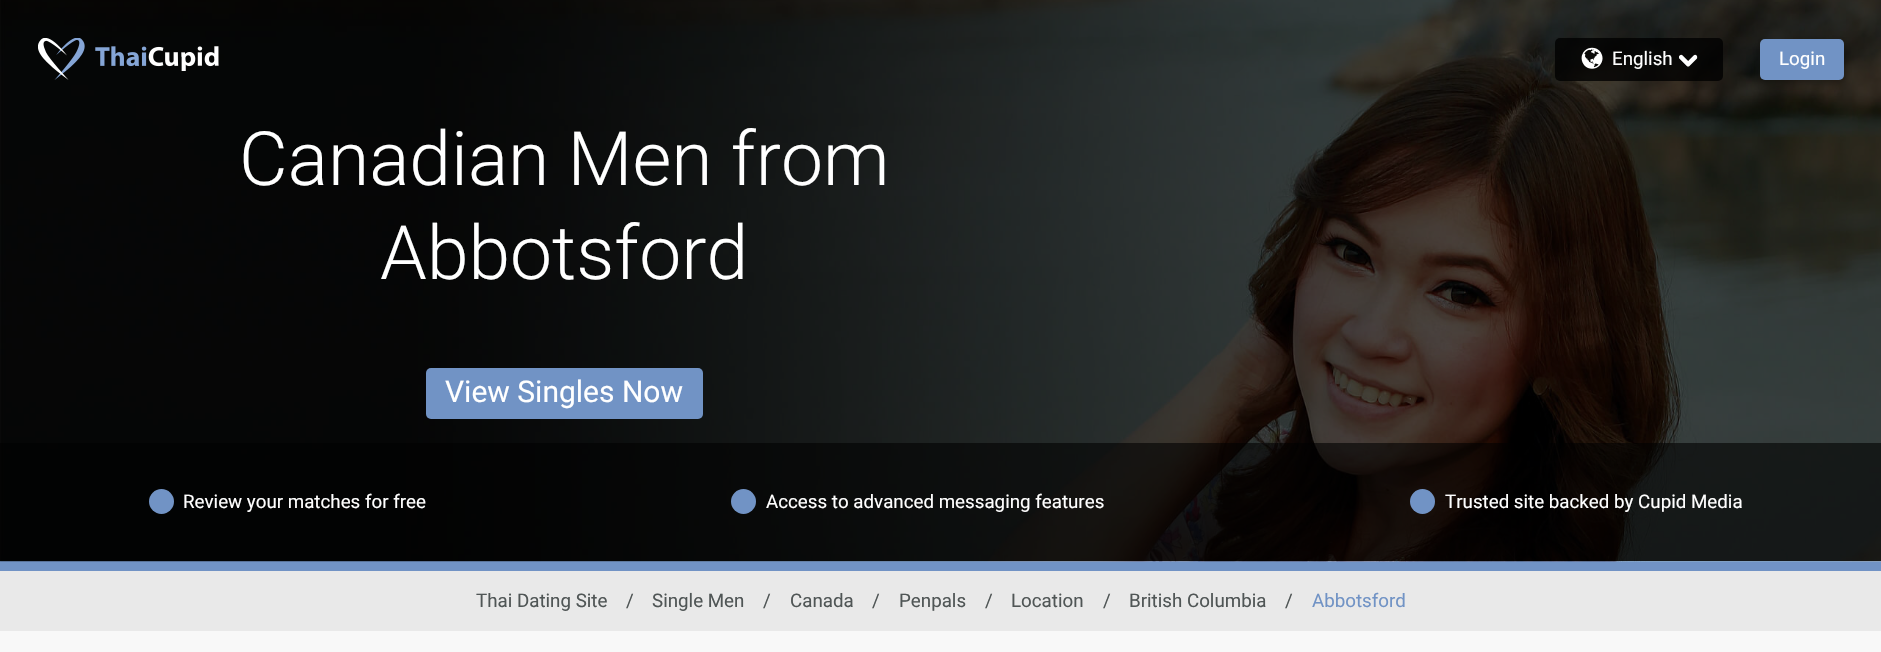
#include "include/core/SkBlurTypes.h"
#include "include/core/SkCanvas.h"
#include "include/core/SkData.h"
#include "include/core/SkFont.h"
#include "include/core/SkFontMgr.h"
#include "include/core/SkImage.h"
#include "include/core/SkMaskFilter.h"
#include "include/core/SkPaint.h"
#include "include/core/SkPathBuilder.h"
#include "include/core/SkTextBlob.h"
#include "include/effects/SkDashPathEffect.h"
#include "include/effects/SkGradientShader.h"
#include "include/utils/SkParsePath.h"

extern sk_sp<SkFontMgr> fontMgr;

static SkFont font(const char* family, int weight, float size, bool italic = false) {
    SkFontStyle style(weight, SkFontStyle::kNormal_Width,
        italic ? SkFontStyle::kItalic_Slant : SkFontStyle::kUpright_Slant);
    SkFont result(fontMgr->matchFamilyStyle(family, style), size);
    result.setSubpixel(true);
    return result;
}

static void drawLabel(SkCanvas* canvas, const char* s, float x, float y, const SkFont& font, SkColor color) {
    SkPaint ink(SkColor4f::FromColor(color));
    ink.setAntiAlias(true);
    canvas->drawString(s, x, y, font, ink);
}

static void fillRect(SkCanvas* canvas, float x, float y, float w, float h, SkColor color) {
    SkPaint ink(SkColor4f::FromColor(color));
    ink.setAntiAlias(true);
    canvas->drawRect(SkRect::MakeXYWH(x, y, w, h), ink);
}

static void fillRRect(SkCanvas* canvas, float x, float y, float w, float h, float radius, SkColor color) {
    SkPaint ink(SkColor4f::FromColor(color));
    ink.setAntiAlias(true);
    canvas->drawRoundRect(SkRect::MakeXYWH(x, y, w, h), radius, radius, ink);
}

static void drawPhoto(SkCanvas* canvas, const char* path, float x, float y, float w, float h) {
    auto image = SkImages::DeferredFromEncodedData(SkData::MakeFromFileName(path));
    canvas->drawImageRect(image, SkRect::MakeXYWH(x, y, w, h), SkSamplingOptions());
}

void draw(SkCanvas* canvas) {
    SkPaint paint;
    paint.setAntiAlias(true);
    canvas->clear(0xFFF8F8F8);
    fillRect(canvas, 0, 561, 1881, 10, 0xFF7193C5);
    drawPhoto(canvas, "assets/img5.png", 0, 0, 1881, 562);
    drawPhoto(canvas, "assets/img1.png", 38, 38, 47, 42);
    drawPhoto(canvas, "assets/img2.png", 95, 46, 124, 25);
    fillRRect(canvas, 1555, 38, 168, 43, 5, 0xCC000000);
    drawPhoto(canvas, "assets/img3.png", 1581, 47, 22, 22);
    SkFont font1 = font("Roboto", 400, 18.75f);
    drawLabel(canvas, "English", 1612, 65, font1, 0xFFFFFFFF);
    drawPhoto(canvas, "assets/img4.png", 1679, 54, 19, 13);
    paint.setColor(0x66000000);
    paint.setMaskFilter(SkMaskFilter::MakeBlur(kNormal_SkBlurStyle, 4));
    canvas->drawRoundRect(SkRect::MakeXYWH(1760, 43, 84, 41), 5, 5, paint);
    paint.setMaskFilter(nullptr);
    fillRRect(canvas, 1760, 39, 84, 41, 5, 0xFF7193C5);
    drawLabel(canvas, "Login", 1779, 65, font1, 0xFFFFFFFF);
    SkFont font2 = font("Roboto", 300, 75);
    drawLabel(canvas, "Canadian Men from", 239, 185, font2, 0xFFFFFFFF);
    drawLabel(canvas, "Abbotsford", 380, 279, font2, 0xFFFFFFFF);
    fillRRect(canvas, 426, 368, 277, 51, 5, 0xFF7193C5);
    SkFont font3 = font("Roboto", 400, 30);
    drawLabel(canvas, "View Singles Now", 445, 402, font3, 0xFFFFFFFF);
    fillRect(canvas, 0, 443, 1881, 118, 0x99000000);
    paint.setColor(0xFF7193C5);
    canvas->drawCircle(161.5f, 501.5f, 12.5f, paint);
    drawLabel(canvas, "Review your matches for free", 183, 508, font1, 0xFFFFFFFF);
    canvas->drawCircle(743.5f, 501.5f, 12.5f, paint);
    drawLabel(canvas, "Access to advanced messaging features", 766, 508, font1, 0xFFFFFFFF);
    canvas->drawCircle(1422.5f, 501.5f, 12.5f, paint);
    drawLabel(canvas, "Trusted site backed by Cupid Media", 1445, 508, font1, 0xFFFFFFFF);
    fillRect(canvas, 0, 571, 1881, 60, 0xFFE9E9E9);
    drawLabel(canvas, "Thai Dating Site", 476, 607, font1, 0xFF505656);
    drawLabel(canvas, "/", 626, 607, font1, 0xFF505656);
    drawLabel(canvas, "Single Men", 652, 607, font1, 0xFF505656);
    drawLabel(canvas, "/", 763, 607, font1, 0xFF505656);
    drawLabel(canvas, "Canada", 790, 607, font1, 0xFF505656);
    drawLabel(canvas, "/", 872, 607, font1, 0xFF505656);
    drawLabel(canvas, "Penpals", 899, 607, font1, 0xFF505656);
    drawLabel(canvas, "/", 985, 607, font1, 0xFF505656);
    drawLabel(canvas, "Location", 1011, 607, font1, 0xFF505656);
    drawLabel(canvas, "/", 1103, 607, font1, 0xFF505656);
    drawLabel(canvas, "British Columbia", 1129, 607, font1, 0xFF505656);
    drawLabel(canvas, "/", 1285, 607, font1, 0xFF505656);
    drawLabel(canvas, "Abbotsford", 1312, 607, font1, 0xFF7193C5);
}
